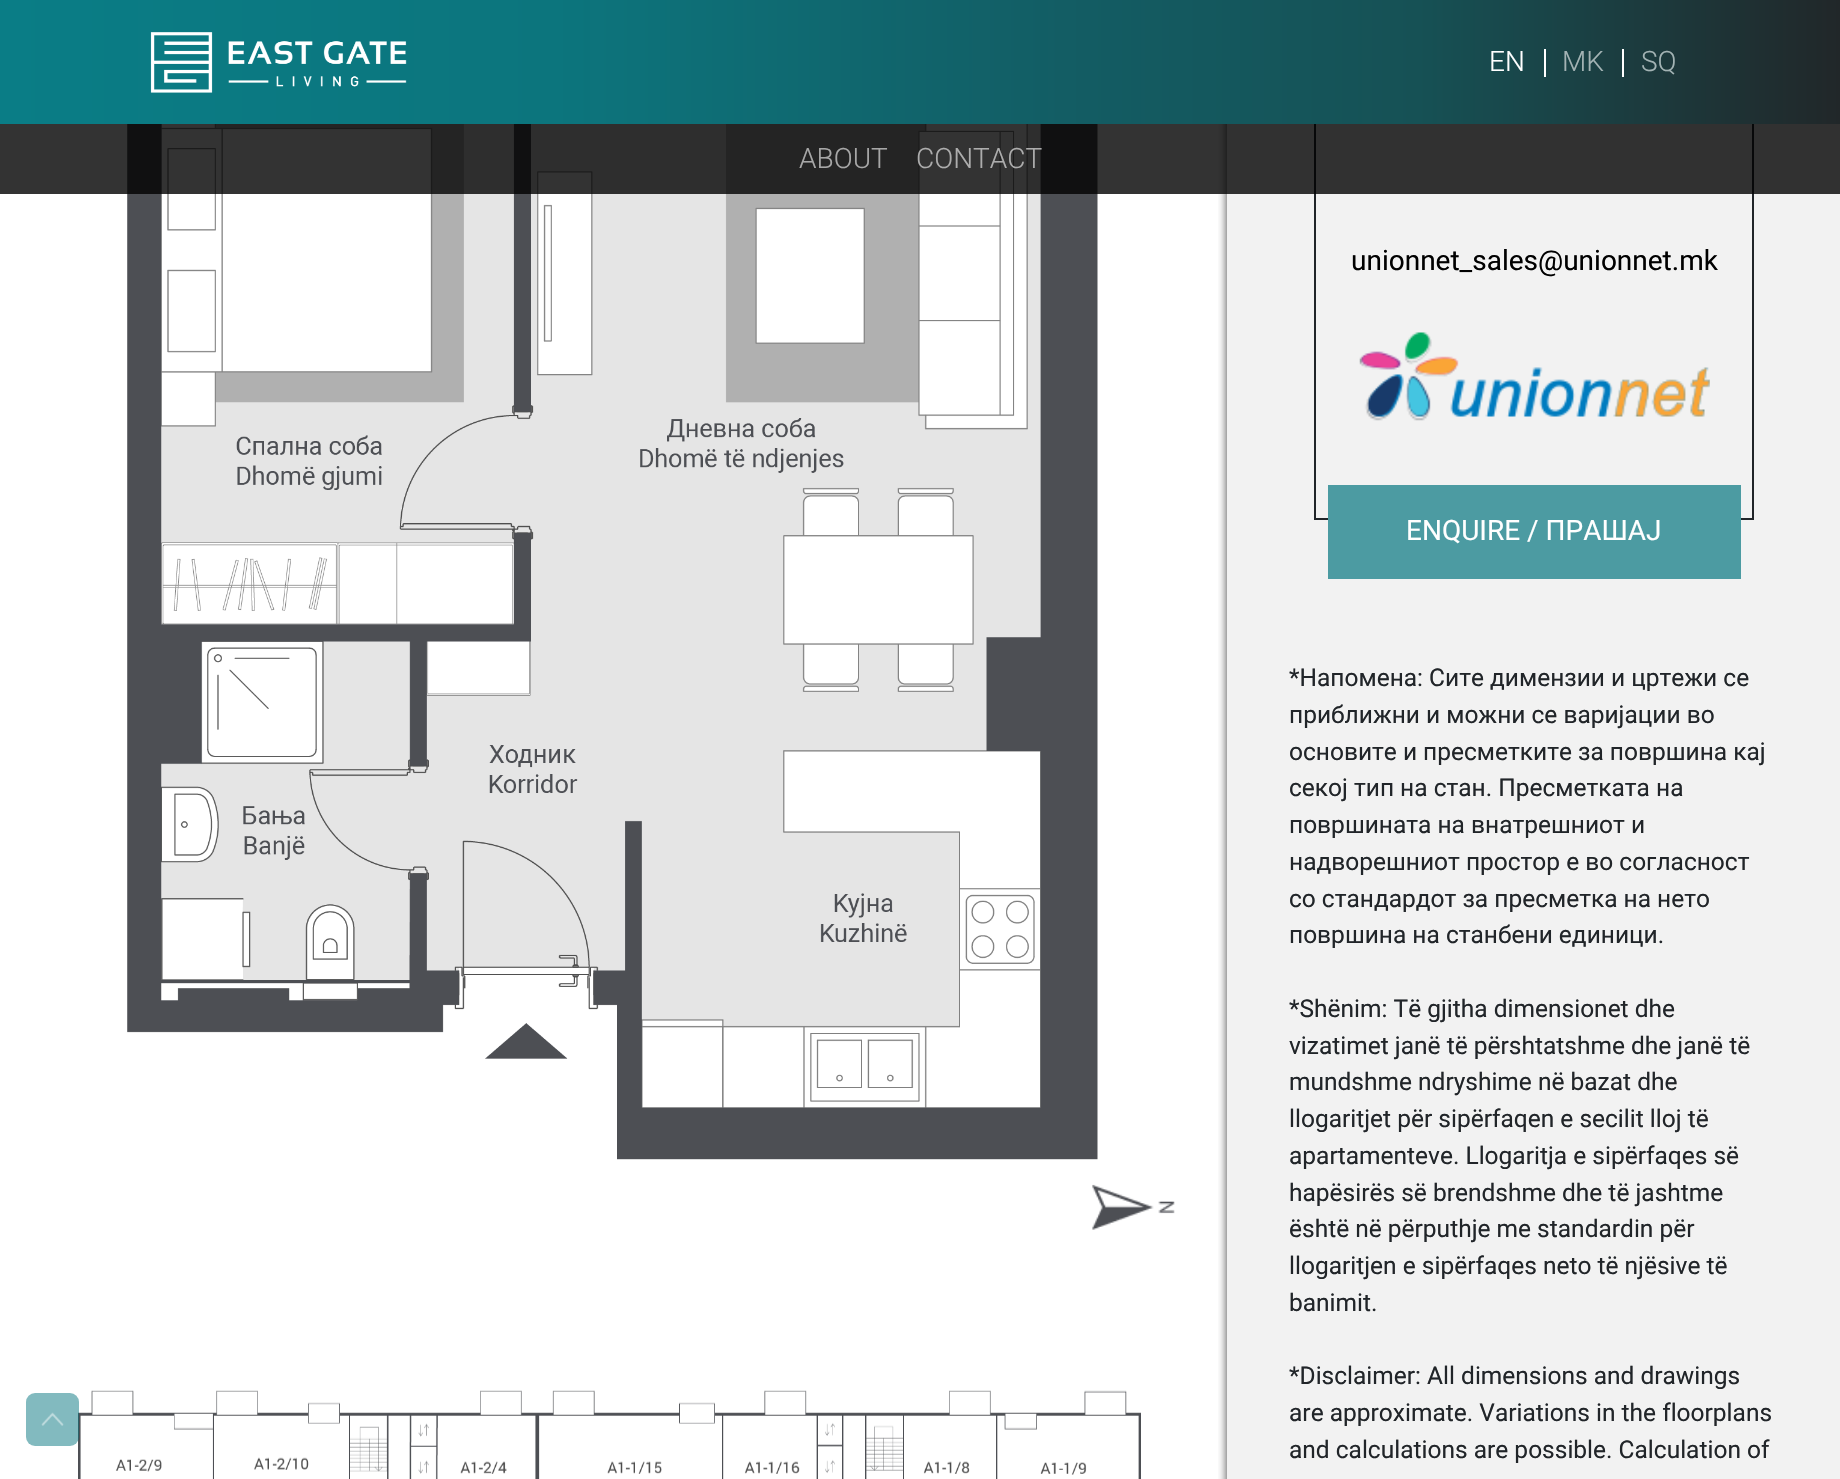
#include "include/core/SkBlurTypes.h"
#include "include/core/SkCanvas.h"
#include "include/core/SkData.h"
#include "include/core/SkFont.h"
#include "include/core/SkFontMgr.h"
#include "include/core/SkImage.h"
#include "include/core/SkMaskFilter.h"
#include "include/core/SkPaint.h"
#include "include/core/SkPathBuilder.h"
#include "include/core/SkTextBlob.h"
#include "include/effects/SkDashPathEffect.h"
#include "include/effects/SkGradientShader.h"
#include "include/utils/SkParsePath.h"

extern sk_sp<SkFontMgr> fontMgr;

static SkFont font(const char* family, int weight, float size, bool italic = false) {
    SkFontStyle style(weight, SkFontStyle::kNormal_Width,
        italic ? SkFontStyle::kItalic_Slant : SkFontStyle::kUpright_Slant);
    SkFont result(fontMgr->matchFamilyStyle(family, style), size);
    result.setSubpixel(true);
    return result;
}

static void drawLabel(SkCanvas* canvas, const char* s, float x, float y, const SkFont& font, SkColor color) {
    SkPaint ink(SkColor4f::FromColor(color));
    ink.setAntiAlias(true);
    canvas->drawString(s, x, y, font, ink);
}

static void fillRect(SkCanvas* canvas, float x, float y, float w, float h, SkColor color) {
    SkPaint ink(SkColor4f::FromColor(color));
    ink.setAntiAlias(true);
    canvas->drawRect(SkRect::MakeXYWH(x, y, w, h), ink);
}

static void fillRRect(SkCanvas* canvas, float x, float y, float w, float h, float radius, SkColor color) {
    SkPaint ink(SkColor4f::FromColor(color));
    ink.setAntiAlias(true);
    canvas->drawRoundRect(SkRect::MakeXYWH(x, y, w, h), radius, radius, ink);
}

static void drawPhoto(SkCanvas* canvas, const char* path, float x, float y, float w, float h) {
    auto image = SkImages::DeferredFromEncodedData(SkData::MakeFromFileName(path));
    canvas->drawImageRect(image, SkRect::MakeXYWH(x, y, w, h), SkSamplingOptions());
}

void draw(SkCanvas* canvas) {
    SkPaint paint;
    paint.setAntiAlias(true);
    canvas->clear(0xFFF2F2F2);
    fillRect(canvas, 0, 124, 1227, 1355, 0xFFFFFFFF);
    canvas->save();
    canvas->clipRect(SkRect::MakeXYWH(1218, 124, 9, 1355));
    paint.setColor(0xBF000000);
    paint.setMaskFilter(SkMaskFilter::MakeBlur(kNormal_SkBlurStyle, 4.5f));
    canvas->drawRect(SkRect::MakeXYWH(1227, -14, 597, 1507), paint);
    paint.setMaskFilter(nullptr);
    canvas->restore();
    paint.setStroke(true);
    paint.setStrokeWidth(2);
    paint.setColor(0xFF212529);
    canvas->drawRect(SkRect::MakeXYWH(1315, -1, 438, 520), paint);
    paint.setStroke(false);
    {
        const SkColor colors[] = {0xFF0A7D86, 0xFF0C757D, 0xFF135C63, 0xFF165155, 0xFF212729};
        const float stops[] = {0, 0.3f, 0.59f, 0.77f, 1};
        const SkPoint ends[] = {{0, 62}, {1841, 62}};
        paint.setShader(SkGradientShader::MakeLinear(ends, colors, stops, 5, SkTileMode::kClamp));
        paint.setAlpha(255);
    }
    canvas->drawRect(SkRect::MakeXYWH(0, 0, 1840, 124), paint);
    drawPhoto(canvas, "assets/img1.png", 150, 32, 257, 61);
    fillRect(canvas, 1544, 49, 2, 28, 0xFFFFFFFF);
    SkFont font1 = font("Roboto", 300, 28);
    drawLabel(canvas, "EN", 1489, 71, font1, 0xFFFFFFFF);
    fillRect(canvas, 1622, 49, 2, 28, 0xFFFFFFFF);
    drawLabel(canvas, "MK", 1562, 71, font1, 0xFFA3B3B4);
    drawLabel(canvas, "SQ", 1641, 71, font1, 0xFFA3B3B4);
    drawPhoto(canvas, "assets/img3.png", 127, 124, 971, 1036);
    fillRect(canvas, 0, 124, 1840, 70, 0xCC000000);
    drawLabel(canvas, "ABOUT", 799, 168, font1, 0xFFA7A7A7);
    drawLabel(canvas, "CONTACT", 916, 168, font1, 0xFFADADAD);
    drawPhoto(canvas, "assets/img5.png", 78, 1390, 1063, 89);
    fillRRect(canvas, 26, 1393, 53, 53, 9, 0x80057580);
    drawPhoto(canvas, "assets/img2.png", 41, 1412, 23, 14);
    drawPhoto(canvas, "assets/img4.png", 1092, 1184, 83, 46);
    SkFont font2 = font("Roboto", 400, 28);
    drawLabel(canvas, "unionnet_sales@unionnet.mk", 1351, 270, font2, 0xFF000000);
    drawPhoto(canvas, "assets/img6.png", 1359, 332, 351, 89);
    fillRect(canvas, 1328, 485, 413, 94, 0xFF4C9BA2);
    drawLabel(canvas, "ENQUIRE / ПРАШАЈ", 1406, 540, font2, 0xFFFFFFFF);
    SkFont font3 = font("Roboto", 400, 24.5f);
    drawLabel(canvas, "*Напомена: Сите димензии и цртежи се", 1289, 686, font3, 0xFF212529);
    drawLabel(canvas, "приближни и можни се варијации во", 1289, 723, font3, 0xFF212529);
    drawLabel(canvas, "основите и пресметките за површина кај", 1289, 760, font3, 0xFF212529);
    drawLabel(canvas, "секој тип на стан. Пресметката на", 1289, 796, font3, 0xFF212529);
    drawLabel(canvas, "површината на внатрешниот и", 1289, 833, font3, 0xFF212529);
    drawLabel(canvas, "надворешниот простор е во согласност", 1289, 870, font3, 0xFF212529);
    drawLabel(canvas, "со стандардот за пресметка на нето", 1289, 907, font3, 0xFF212529);
    drawLabel(canvas, "површина на станбени единици.", 1289, 943, font3, 0xFF212529);
    drawLabel(canvas, "*Shënim: Të gjitha dimensionet dhe", 1289, 1017, font3, 0xFF212529);
    drawLabel(canvas, "vizatimet janë të përshtatshme dhe janë të", 1289, 1054, font3, 0xFF212529);
    drawLabel(canvas, "mundshme ndryshime në bazat dhe", 1289, 1090, font3, 0xFF212529);
    drawLabel(canvas, "llogaritjet për sipërfaqen e secilit lloj të", 1289, 1127, font3, 0xFF212529);
    drawLabel(canvas, "apartamenteve. Llogaritja e sipërfaqes së", 1289, 1164, font3, 0xFF212529);
    drawLabel(canvas, "hapësirës së brendshme dhe të jashtme", 1289, 1201, font3, 0xFF212529);
    drawLabel(canvas, "është në përputhje me standardin për", 1289, 1237, font3, 0xFF212529);
    drawLabel(canvas, "llogaritjen e sipërfaqes neto të njësive të", 1289, 1274, font3, 0xFF212529);
    drawLabel(canvas, "banimit.", 1289, 1311, font3, 0xFF212529);
    drawLabel(canvas, "*Disclaimer: All dimensions and drawings", 1289, 1384, font3, 0xFF212529);
    drawLabel(canvas, "are approximate. Variations in the floorplans", 1289, 1421, font3, 0xFF212529);
    drawLabel(canvas, "and calculations are possible. Calculation of", 1289, 1458, font3, 0xFF212529);
}
